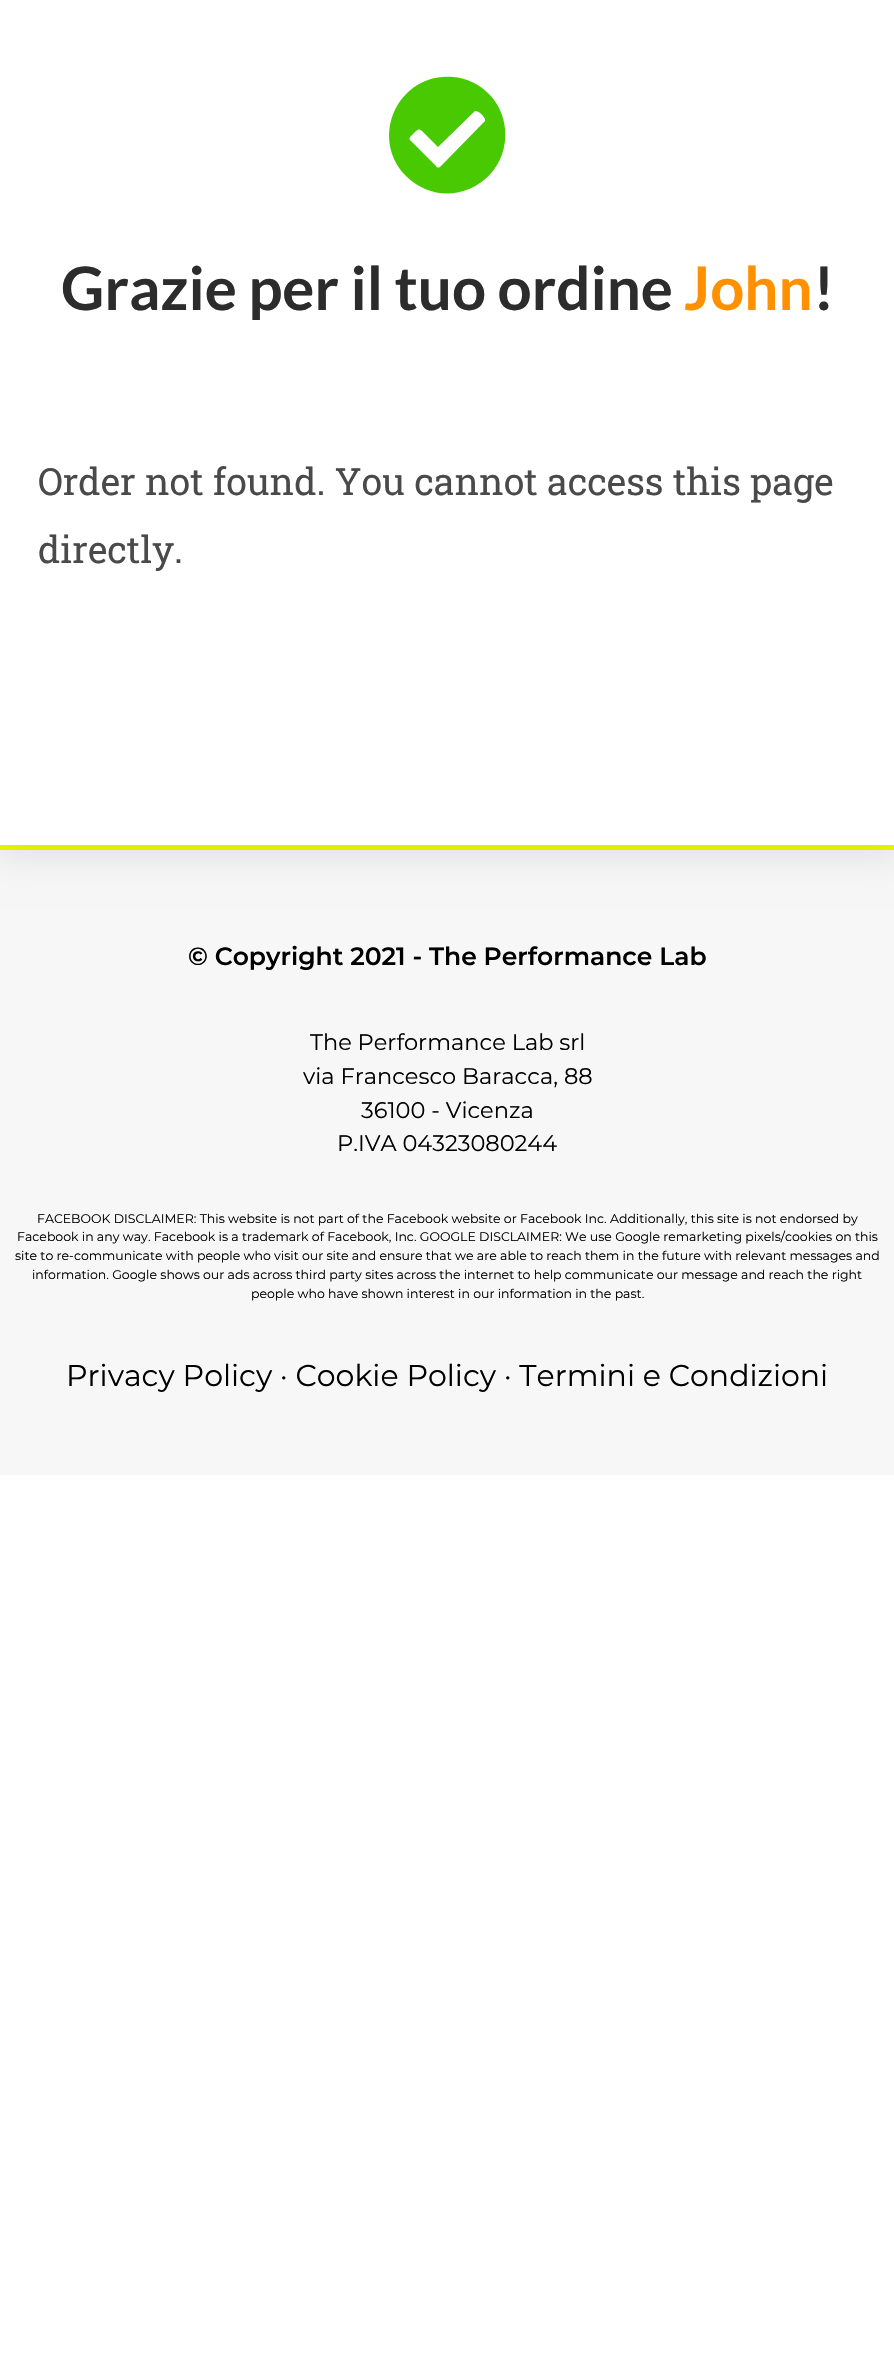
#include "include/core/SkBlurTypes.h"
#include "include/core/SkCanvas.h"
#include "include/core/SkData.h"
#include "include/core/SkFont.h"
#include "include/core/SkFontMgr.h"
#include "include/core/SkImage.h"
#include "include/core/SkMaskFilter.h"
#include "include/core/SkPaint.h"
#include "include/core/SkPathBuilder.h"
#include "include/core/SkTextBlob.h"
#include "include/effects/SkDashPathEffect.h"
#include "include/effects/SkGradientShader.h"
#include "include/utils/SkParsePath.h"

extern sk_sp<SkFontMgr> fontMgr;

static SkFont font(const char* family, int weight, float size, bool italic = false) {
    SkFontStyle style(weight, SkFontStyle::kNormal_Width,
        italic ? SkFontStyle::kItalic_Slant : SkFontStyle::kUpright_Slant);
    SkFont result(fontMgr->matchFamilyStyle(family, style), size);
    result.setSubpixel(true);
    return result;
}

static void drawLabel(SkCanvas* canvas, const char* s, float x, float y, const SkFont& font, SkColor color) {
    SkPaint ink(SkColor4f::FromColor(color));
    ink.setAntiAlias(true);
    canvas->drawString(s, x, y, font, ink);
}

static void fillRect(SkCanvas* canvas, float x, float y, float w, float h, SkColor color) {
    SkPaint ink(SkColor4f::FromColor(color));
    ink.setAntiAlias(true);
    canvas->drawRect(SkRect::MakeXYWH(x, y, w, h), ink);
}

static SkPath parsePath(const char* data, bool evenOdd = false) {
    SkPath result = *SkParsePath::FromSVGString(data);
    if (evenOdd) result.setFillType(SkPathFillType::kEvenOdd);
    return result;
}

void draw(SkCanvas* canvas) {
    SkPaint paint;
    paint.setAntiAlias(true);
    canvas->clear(0xFFFFFFFF);
    fillRect(canvas, 0, 850, 894, 625, 0xFFF7F7F7);
    fillRect(canvas, 0, 845, 894, 5, 0xFFEDFF00);
    paint.setColor(0x1A000000);
    paint.setMaskFilter(SkMaskFilter::MakeBlur(kNormal_SkBlurStyle, 19));
    canvas->drawRect(SkRect::MakeXYWH(-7, -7, 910, 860), paint);
    paint.setMaskFilter(nullptr);
    fillRect(canvas, 0, 0, 894, 845, 0xFFFFFFFF);
    paint.setColor(0xFF48C901);
    canvas->drawPath(parsePath("M489 94C498 103 504 116 505 129C510 184 445 215 406 176C368 137 399 72 453 77C467 78 479 84 489 94ZM441 166L485 121C485 120 485 120 485 119C484 116 478 110 475 111L438 147L422 131C420 129 418 129 416 131L411 136C409 138 409 140 411 141L436 166C437 168 439 168 441 166Z"), paint);
    SkFont font1 = font("Lato", 700, 60);
    drawLabel(canvas, "Grazie per il tuo ordine", 61, 310, font1, 0xFF2C2C2C);
    drawLabel(canvas, "John", 684, 310, font1, 0xFFFF9100);
    drawLabel(canvas, "!", 813, 310, font1, 0xFF2C2C2C);
    SkFont font2 = font("Roboto Slab", 400, 37.5f);
    drawLabel(canvas, "Order not found. You cannot access this page", 38, 495, font2, 0xFF4A4A4A);
    drawLabel(canvas, "directly.", 38, 563, font2, 0xFF4A4A4A);
    SkFont font3 = font("Montserrat", 600, 25);
    drawLabel(canvas, "© Copyright 2021 - The Performance Lab", 188, 965, font3, 0xFF000000);
    SkFont font4 = font("Montserrat", 400, 22.5f);
    drawLabel(canvas, "The Performance Lab srl", 310, 1050, font4, 0xFF000000);
    drawLabel(canvas, "via Francesco Baracca, 88", 303, 1084, font4, 0xFF000000);
    drawLabel(canvas, "36100 - Vicenza", 361, 1118, font4, 0xFF000000);
    drawLabel(canvas, "P.IVA 04323080244", 337, 1151, font4, 0xFF000000);
    SkFont font5 = font("Montserrat", 400, 12.5f);
    drawLabel(canvas, "FACEBOOK DISCLAIMER: This website is not part of the Facebook website or Facebook Inc. Additionally, this site is not endorsed by", 37, 1223, font5, 0xFF000000);
    drawLabel(canvas, "Facebook in any way. Facebook is a trademark of Facebook, Inc. GOOGLE DISCLAIMER: We use Google remarketing pixels/cookies on this", 17, 1241, font5, 0xFF000000);
    drawLabel(canvas, "site to re-communicate with people who visit our site and ensure that we are able to reach them in the future with relevant messages and", 15, 1260, font5, 0xFF000000);
    drawLabel(canvas, "information. Google shows our ads across third party sites across the internet to help communicate our message and reach the right", 32, 1279, font5, 0xFF000000);
    drawLabel(canvas, "people who have shown interest in our information in the past.", 251, 1298, font5, 0xFF000000);
    SkFont font6 = font("Montserrat", 400, 30);
    drawLabel(canvas, "Privacy Policy · Cookie Policy · Termini e Condizioni", 66, 1386, font6, 0xFF000000);
}
